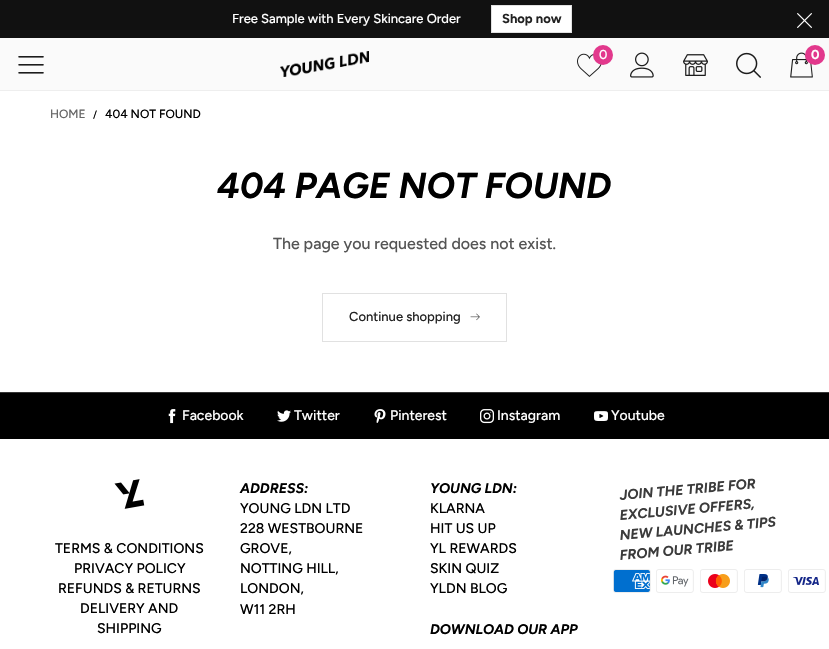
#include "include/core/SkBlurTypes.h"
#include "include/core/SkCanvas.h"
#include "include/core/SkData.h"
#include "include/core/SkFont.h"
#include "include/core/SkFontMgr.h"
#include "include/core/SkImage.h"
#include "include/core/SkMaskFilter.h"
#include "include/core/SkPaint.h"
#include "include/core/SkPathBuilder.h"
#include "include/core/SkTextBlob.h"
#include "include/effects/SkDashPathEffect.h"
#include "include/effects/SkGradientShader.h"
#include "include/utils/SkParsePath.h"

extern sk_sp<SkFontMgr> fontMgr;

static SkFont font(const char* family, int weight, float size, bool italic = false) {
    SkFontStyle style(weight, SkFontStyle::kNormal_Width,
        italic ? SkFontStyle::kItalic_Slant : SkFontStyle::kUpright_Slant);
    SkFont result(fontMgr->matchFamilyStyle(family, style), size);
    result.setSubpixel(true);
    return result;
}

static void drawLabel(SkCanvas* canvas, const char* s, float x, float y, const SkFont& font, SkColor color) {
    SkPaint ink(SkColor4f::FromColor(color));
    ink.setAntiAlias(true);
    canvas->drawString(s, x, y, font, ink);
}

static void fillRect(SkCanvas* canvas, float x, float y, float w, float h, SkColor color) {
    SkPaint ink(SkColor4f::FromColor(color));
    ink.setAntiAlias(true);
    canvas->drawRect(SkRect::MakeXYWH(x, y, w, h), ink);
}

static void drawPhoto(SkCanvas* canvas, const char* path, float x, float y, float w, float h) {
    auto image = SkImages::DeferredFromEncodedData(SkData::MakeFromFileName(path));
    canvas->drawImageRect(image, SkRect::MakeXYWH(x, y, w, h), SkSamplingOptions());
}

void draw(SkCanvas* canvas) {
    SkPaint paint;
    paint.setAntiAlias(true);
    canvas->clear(0xFFFFFFFF);
    fillRect(canvas, 0, 0, 829, 38, 0xFF111111);
    SkFont font1 = font("Figtree", 500, 13);
    drawLabel(canvas, "Free Sample with Every Skincare Order", 232, 23, font1, 0xFFFFFFFF);
    paint.setColor(0xFFFFFFFF);
    canvas->drawRect(SkRect::MakeXYWH(491.5f, 5.5f, 80, 27), paint);
    paint.setStroke(true);
    paint.setStrokeWidth(1);
    paint.setColor(0xFFE1E1E1);
    canvas->drawRect(SkRect::MakeXYWH(491.5f, 5.5f, 80, 27), paint);
    SkFont font2 = font("Figtree", 700, 13);
    drawLabel(canvas, "Shop now", 502, 23, font2, 0xFF222222);
    drawPhoto(canvas, "assets/img1.png", 797, 13, 15, 15);
    fillRect(canvas, 0, 38, 829, 52, 0xFFFAFAFA);
    fillRect(canvas, 0, 90, 829, 1, 0xFFEEEEEE);
    drawPhoto(canvas, "assets/img2.png", 18, 56, 26, 18);
    drawPhoto(canvas, "assets/img3.png", 280, 51, 89, 26);
    drawPhoto(canvas, "assets/img4.png", 577, 53, 25, 24);
    paint.setStroke(false);
    paint.setColor(0xFFE2388C);
    canvas->drawCircle(603, 55, 10, paint);
    drawLabel(canvas, "0", 599, 59, font1, 0xFFFFFFFF);
    drawPhoto(canvas, "assets/img5.png", 630, 52, 24, 26);
    drawPhoto(canvas, "assets/img6.png", 683, 54, 25, 22);
    drawPhoto(canvas, "assets/img7.png", 736, 52, 25, 26);
    drawPhoto(canvas, "assets/img8.png", 790, 52, 23, 26);
    canvas->drawCircle(815, 55, 10, paint);
    drawLabel(canvas, "0", 811, 59, font2, 0xFFFFFFFF);
    SkFont font3 = font("Figtree", 500, 12);
    drawLabel(canvas, "HOME", 50, 118, font3, 0xFF666666);
    SkFont font4 = font("Figtree", 500, 10);
    drawLabel(canvas, "/", 93, 118, font4, 0xFF000000);
    drawLabel(canvas, "404 NOT FOUND", 105, 118, font3, 0xFF000000);
    SkFont font5 = font("Figtree", 700, 36, true);
    drawLabel(canvas, "404 PAGE NOT FOUND", 217, 198, font5, 0xFF000000);
    SkFont font6 = font("Figtree", 500, 16);
    drawLabel(canvas, "The page you requested does not exist.", 273, 249, font6, 0xFF555555);
    paint.setStroke(true);
    paint.setColor(0xFFE1E1E1);
    canvas->drawRect(SkRect::MakeXYWH(322.5f, 293.5f, 184, 48), paint);
    drawLabel(canvas, "Continue shopping", 349, 321, font1, 0xFF222222);
    drawPhoto(canvas, "assets/img9.png", 470, 313, 10, 8);
    fillRect(canvas, 0, 392, 829, 1, 0xFF363636);
    fillRect(canvas, 0, 393, 829, 46, 0xFF000000);
    drawPhoto(canvas, "assets/img10.png", 168, 409, 8, 15);
    SkFont font7 = font("Figtree", 500, 14);
    drawLabel(canvas, "Facebook", 182, 420, font7, 0xFFFFFFFF);
    drawPhoto(canvas, "assets/img11.png", 277, 410, 14, 12);
    drawLabel(canvas, "Twitter", 294, 420, font7, 0xFFFFFFFF);
    drawPhoto(canvas, "assets/img12.png", 374, 409, 12, 14);
    drawLabel(canvas, "Pinterest", 390, 420, font7, 0xFFFFFFFF);
    drawPhoto(canvas, "assets/img13.png", 480, 409, 14, 15);
    drawLabel(canvas, "Instagram", 497, 420, font7, 0xFFFFFFFF);
    drawPhoto(canvas, "assets/img14.png", 594, 411, 14, 10);
    drawLabel(canvas, "Youtube", 611, 420, font7, 0xFFFFFFFF);
    drawPhoto(canvas, "assets/img15.png", 114, 479, 31, 30);
    drawLabel(canvas, "TERMS & CONDITIONS", 55, 553, font7, 0xFF000000);
    drawLabel(canvas, "PRIVACY POLICY", 74, 573, font7, 0xFF000000);
    drawLabel(canvas, "REFUNDS & RETURNS", 58, 593, font7, 0xFF000000);
    drawLabel(canvas, "DELIVERY AND", 80, 613, font7, 0xFF000000);
    drawLabel(canvas, "SHIPPING", 97, 633, font7, 0xFF000000);
    SkFont font8 = font("Figtree", 700, 14, true);
    drawLabel(canvas, "ADDRESS:", 240, 493, font8, 0xFF000000);
    drawLabel(canvas, "YOUNG LDN LTD", 240, 513, font7, 0xFF000000);
    drawLabel(canvas, "228 WESTBOURNE", 240, 533, font7, 0xFF000000);
    drawLabel(canvas, "GROVE,", 240, 553, font7, 0xFF000000);
    drawLabel(canvas, "NOTTING HILL,", 240, 573, font7, 0xFF000000);
    drawLabel(canvas, "LONDON,", 240, 593, font7, 0xFF000000);
    drawLabel(canvas, "W11 2RH", 240, 614, font7, 0xFF000000);
    drawLabel(canvas, "YOUNG LDN:", 430, 493, font8, 0xFF000000);
    drawLabel(canvas, "KLARNA", 430, 513, font7, 0xFF000000);
    drawLabel(canvas, "HIT US UP", 430, 533, font7, 0xFF000000);
    drawLabel(canvas, "YL REWARDS", 430, 553, font7, 0xFF000000);
    drawLabel(canvas, "SKIN QUIZ", 430, 573, font7, 0xFF000000);
    drawLabel(canvas, "YLDN BLOG", 430, 593, font7, 0xFF000000);
    drawLabel(canvas, "DOWNLOAD OUR APP", 430, 634, font8, 0xFF000000);
    canvas->save();
    canvas->rotate(-5, 620, 500);
    drawLabel(canvas, "JOIN THE TRIBE FOR", 620, 500, font8, 0xFF3B3B3B);
    canvas->restore();
    canvas->save();
    canvas->rotate(-5, 620, 520);
    drawLabel(canvas, "EXCLUSIVE OFFERS,", 620, 520, font8, 0xFF3B3B3B);
    canvas->restore();
    canvas->save();
    canvas->rotate(-5, 620, 540);
    drawLabel(canvas, "NEW LAUNCHES & TIPS", 620, 540, font8, 0xFF3B3B3B);
    canvas->restore();
    canvas->save();
    canvas->rotate(-5, 620, 560);
    drawLabel(canvas, "FROM OUR TRIBE", 620, 560, font8, 0xFF3B3B3B);
    canvas->restore();
    drawPhoto(canvas, "assets/img16.png", 613, 569, 38, 24);
    drawPhoto(canvas, "assets/img17.png", 656, 569, 38, 24);
    drawPhoto(canvas, "assets/img18.png", 700, 569, 38, 24);
    drawPhoto(canvas, "assets/img19.png", 744, 569, 38, 24);
    drawPhoto(canvas, "assets/img20.png", 788, 569, 38, 24);
}
